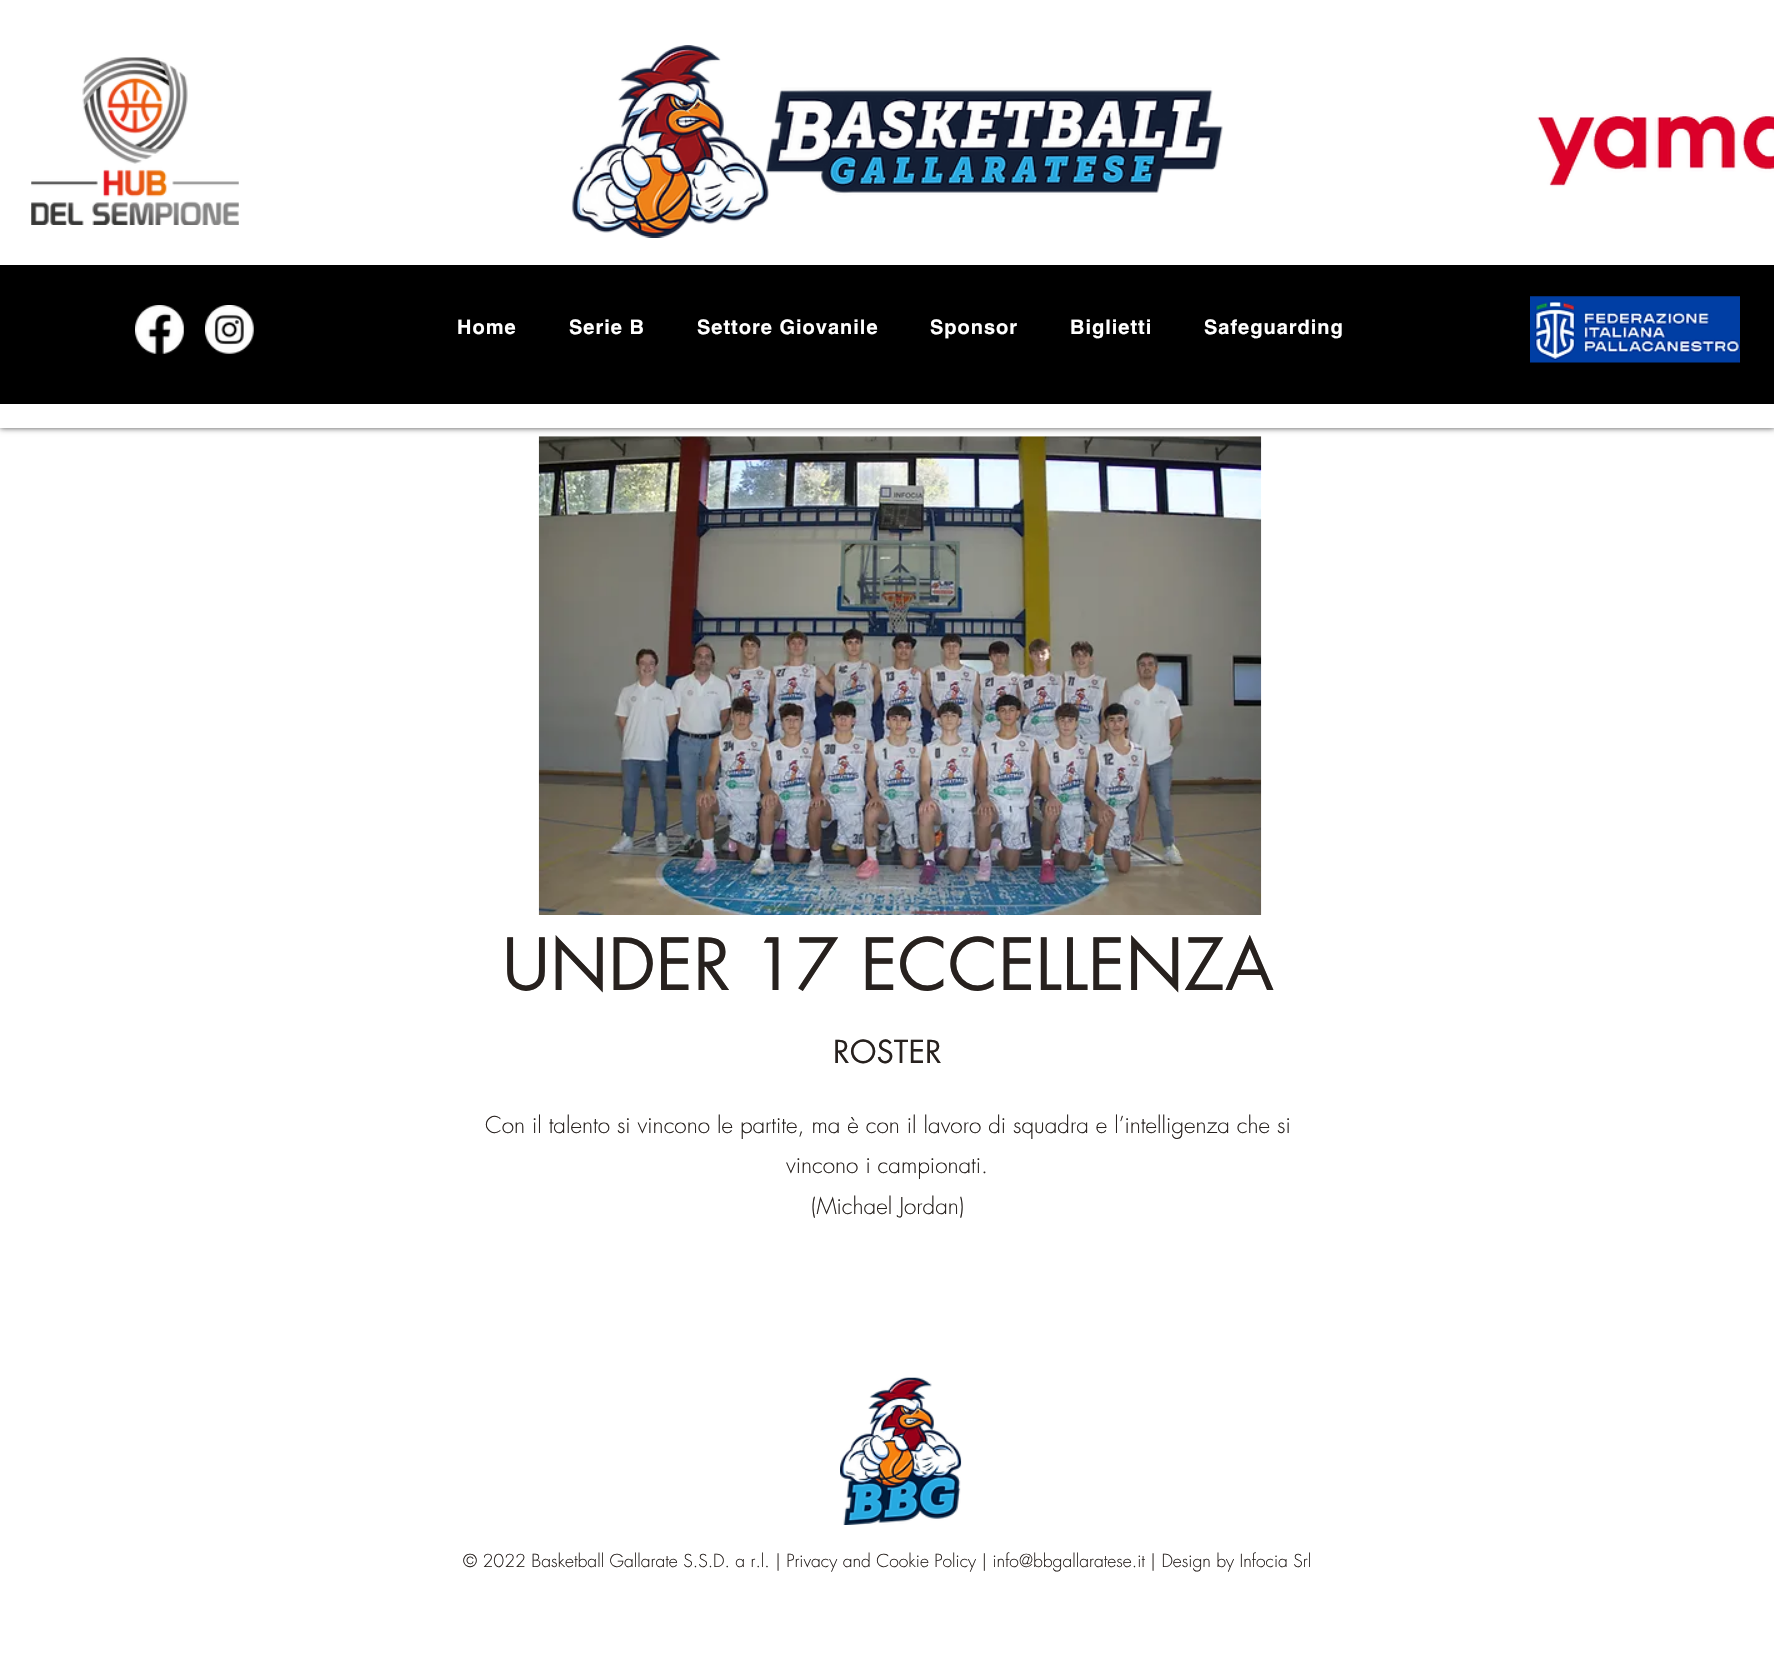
#include "include/core/SkBlurTypes.h"
#include "include/core/SkCanvas.h"
#include "include/core/SkData.h"
#include "include/core/SkFont.h"
#include "include/core/SkFontMgr.h"
#include "include/core/SkImage.h"
#include "include/core/SkMaskFilter.h"
#include "include/core/SkPaint.h"
#include "include/core/SkPathBuilder.h"
#include "include/core/SkTextBlob.h"
#include "include/effects/SkDashPathEffect.h"
#include "include/effects/SkGradientShader.h"
#include "include/utils/SkParsePath.h"

extern sk_sp<SkFontMgr> fontMgr;

static SkFont font(const char* family, int weight, float size, bool italic = false) {
    SkFontStyle style(weight, SkFontStyle::kNormal_Width,
        italic ? SkFontStyle::kItalic_Slant : SkFontStyle::kUpright_Slant);
    SkFont result(fontMgr->matchFamilyStyle(family, style), size);
    result.setSubpixel(true);
    return result;
}

static void drawLabel(SkCanvas* canvas, const char* s, float x, float y, const SkFont& font, SkColor color) {
    SkPaint ink(SkColor4f::FromColor(color));
    ink.setAntiAlias(true);
    canvas->drawString(s, x, y, font, ink);
}

static void drawTracked(SkCanvas* canvas, const char* s, float x, float y, const SkFont& font, const SkPaint& ink, float letter, float word) {
    std::vector<SkGlyphID> glyphs(font.countText(s, strlen(s), SkTextEncoding::kUTF8));
    std::vector<float> xs(glyphs.size());
    font.textToGlyphs(s, strlen(s), SkTextEncoding::kUTF8, glyphs);
    font.getXPos(glyphs, xs, x);
    float extra = 0;
    for (size_t i = 0; i < glyphs.size(); i++) {
        xs[i] += extra;
        extra += letter + word * (glyphs[i] == font.unicharToGlyph(' '));
    }
    canvas->drawTextBlob(SkTextBlob::MakeFromPosHGlyphs(glyphs, xs, y, font), 0, 0, ink);
}

static void fillRect(SkCanvas* canvas, float x, float y, float w, float h, SkColor color) {
    SkPaint ink(SkColor4f::FromColor(color));
    ink.setAntiAlias(true);
    canvas->drawRect(SkRect::MakeXYWH(x, y, w, h), ink);
}

static void drawPhoto(SkCanvas* canvas, const char* path, float x, float y, float w, float h) {
    auto image = SkImages::DeferredFromEncodedData(SkData::MakeFromFileName(path));
    canvas->drawImageRect(image, SkRect::MakeXYWH(x, y, w, h), SkSamplingOptions());
}

static SkPath parsePath(const char* data, bool evenOdd = false) {
    SkPath result = *SkParsePath::FromSVGString(data);
    if (evenOdd) result.setFillType(SkPathFillType::kEvenOdd);
    return result;
}

void draw(SkCanvas* canvas) {
    SkPaint paint;
    paint.setAntiAlias(true);
    canvas->clear(0xFFFFFFFF);
    drawPhoto(canvas, "assets/img7.png", 538, 436, 724, 479);
    canvas->save();
    canvas->clipPath(parsePath("M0 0H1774V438H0ZM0 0H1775V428H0Z", true), true);
    paint.setColor(0xB3000000);
    paint.setMaskFilter(SkMaskFilter::MakeBlur(kNormal_SkBlurStyle, 3));
    canvas->drawRect(SkRect::MakeXYWH(0, 0, 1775, 428), paint);
    paint.setMaskFilter(nullptr);
    canvas->restore();
    fillRect(canvas, 0, 427, 1774, 1, 0x99FFFFFF);
    drawPhoto(canvas, "assets/img1.png", 31, 57, 208, 168);
    drawPhoto(canvas, "assets/img2.png", 571, 45, 652, 193);
    drawPhoto(canvas, "assets/img3.png", 1537, 114, 237, 73);
    fillRect(canvas, 0, 265, 1774, 139, 0xFF000000);
    drawPhoto(canvas, "assets/img4.png", 135, 305, 49, 49);
    drawPhoto(canvas, "assets/img5.png", 205, 305, 49, 49);
    SkFont font1 = font("helvetica", 700, 20);
    paint.setColor(0xFFFFFFFF);
    drawTracked(canvas, "Home", 457, 334, font1, paint, 1, 0);
    drawTracked(canvas, "Serie B", 569, 334, font1, paint, 1, 0);
    drawTracked(canvas, "Settore Giovanile", 697, 334, font1, paint, 1, 0);
    drawTracked(canvas, "Sponsor", 930, 334, font1, paint, 1, 0);
    drawTracked(canvas, "Biglietti", 1070, 334, font1, paint, 1, 0);
    drawTracked(canvas, "Safeguarding", 1204, 334, font1, paint, 1, 0);
    drawPhoto(canvas, "assets/img6.png", 1530, 296, 210, 67);
    SkFont font2 = font("futura", 400, 70);
    drawLabel(canvas, "UNDER 17 ECCELLENZA", 502, 990, font2, 0xFF27211E);
    SkFont font3 = font("futura", 400, 31);
    drawLabel(canvas, "ROSTER", 833, 1063, font3, 0xFF27211E);
    SkFont font4 = font("futura", 300, 22.5f);
    drawLabel(canvas, "Con il talento si vincono le partite, ma è con il lavoro di squadra e l’intelligenza che si", 485, 1133, font4, 0xFF27211E);
    drawLabel(canvas, "vincono i campionati.", 786, 1173, font4, 0xFF27211E);
    drawLabel(canvas, "(Michael Jordan)", 811, 1214, font4, 0xFF27211E);
    drawPhoto(canvas, "assets/img8.png", 840, 1377, 122, 148);
    SkFont font5 = font("futura", 300, 17.5f);
    drawLabel(canvas, "© 2022 Basketball Gallarate S.S.D. a r.l. | Privacy and Cookie Policy | info@bbgallaratese.it | Design by Infocia Srl", 463, 1567, font5, 0xFF27211E);
}
